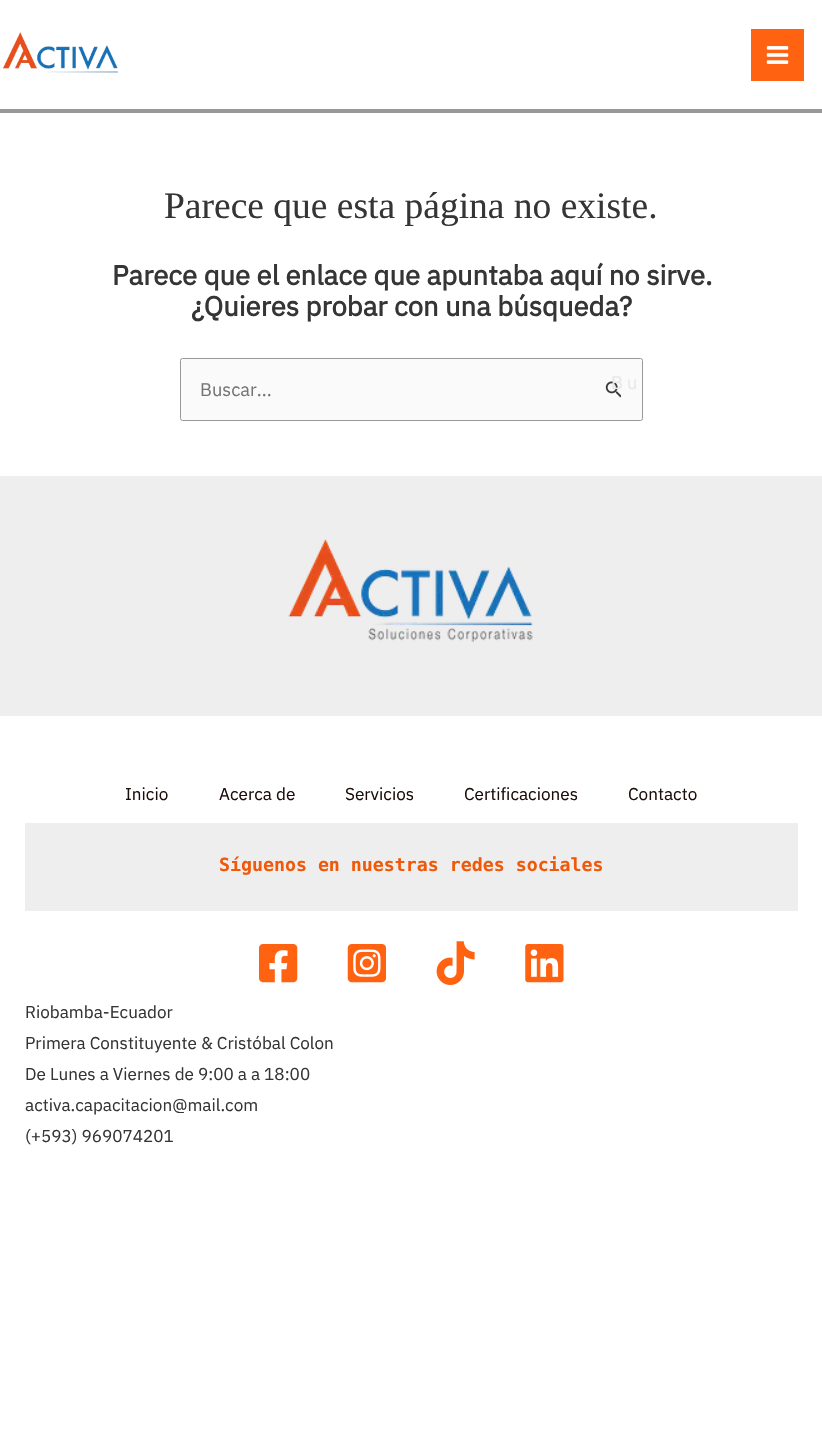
#include "include/core/SkBlurTypes.h"
#include "include/core/SkCanvas.h"
#include "include/core/SkData.h"
#include "include/core/SkFont.h"
#include "include/core/SkFontMgr.h"
#include "include/core/SkImage.h"
#include "include/core/SkMaskFilter.h"
#include "include/core/SkPaint.h"
#include "include/core/SkPathBuilder.h"
#include "include/core/SkTextBlob.h"
#include "include/effects/SkDashPathEffect.h"
#include "include/effects/SkGradientShader.h"
#include "include/utils/SkParsePath.h"

extern sk_sp<SkFontMgr> fontMgr;

static SkFont font(const char* family, int weight, float size, bool italic = false) {
    SkFontStyle style(weight, SkFontStyle::kNormal_Width,
        italic ? SkFontStyle::kItalic_Slant : SkFontStyle::kUpright_Slant);
    SkFont result(fontMgr->matchFamilyStyle(family, style), size);
    result.setSubpixel(true);
    return result;
}

static void drawLabel(SkCanvas* canvas, const char* s, float x, float y, const SkFont& font, SkColor color) {
    SkPaint ink(SkColor4f::FromColor(color));
    ink.setAntiAlias(true);
    canvas->drawString(s, x, y, font, ink);
}

static void drawTracked(SkCanvas* canvas, const char* s, float x, float y, const SkFont& font, const SkPaint& ink, float letter, float word) {
    std::vector<SkGlyphID> glyphs(font.countText(s, strlen(s), SkTextEncoding::kUTF8));
    std::vector<float> xs(glyphs.size());
    font.textToGlyphs(s, strlen(s), SkTextEncoding::kUTF8, glyphs);
    font.getXPos(glyphs, xs, x);
    float extra = 0;
    for (size_t i = 0; i < glyphs.size(); i++) {
        xs[i] += extra;
        extra += letter + word * (glyphs[i] == font.unicharToGlyph(' '));
    }
    canvas->drawTextBlob(SkTextBlob::MakeFromPosHGlyphs(glyphs, xs, y, font), 0, 0, ink);
}

static void fillRect(SkCanvas* canvas, float x, float y, float w, float h, SkColor color) {
    SkPaint ink(SkColor4f::FromColor(color));
    ink.setAntiAlias(true);
    canvas->drawRect(SkRect::MakeXYWH(x, y, w, h), ink);
}

static void drawPhoto(SkCanvas* canvas, const char* path, float x, float y, float w, float h) {
    auto image = SkImages::DeferredFromEncodedData(SkData::MakeFromFileName(path));
    canvas->drawImageRect(image, SkRect::MakeXYWH(x, y, w, h), SkSamplingOptions());
}

void draw(SkCanvas* canvas) {
    SkPaint paint;
    paint.setAntiAlias(true);
    canvas->clear(0xFFFFFFFF);
    fillRect(canvas, 0, 109, 822, 4, 0xFF989898);
    drawPhoto(canvas, "assets/img1.png", 2, 32, 116, 41);
    fillRect(canvas, 751, 29, 53, 52, 0xFFFF6210);
    drawPhoto(canvas, "assets/img2.png", 766, 46, 23, 18);
    SkFont font1 = font("Liberation Serif", 400, 37.5f);
    drawLabel(canvas, "Parece que esta página no existe.", 164, 218, font1, 0xFF353535);
    SkFont font2 = font("IBM Plex Sans", 700, 27.4f);
    drawLabel(canvas, "Parece que el enlace que apuntaba aquí no sirve.", 112, 285, font2, 0xFF353535);
    drawLabel(canvas, "¿Quieres probar con una búsqueda?", 191, 316, font2, 0xFF353535);
    paint.setColor(0xFFFAFAFA);
    canvas->drawRoundRect(SkRect::MakeXYWH(180.5f, 358.5f, 462, 62), 2, 2, paint);
    paint.setStroke(true);
    paint.setStrokeWidth(1);
    paint.setColor(0xFF989898);
    canvas->drawRoundRect(SkRect::MakeXYWH(180.5f, 358.5f, 462, 62), 2, 2, paint);
    SkFont font3 = font("IBM Plex Sans", 400, 18.25f);
    drawLabel(canvas, "Buscar...", 200, 396, font3, 0xFF757575);
    drawPhoto(canvas, "assets/img3.png", 605, 381, 16, 17);
    paint.setStroke(false);
    paint.setColor(0xFFE8E8E8);
    drawTracked(canvas, "Bu", 611, 389, font3, paint, 4, 0);
    fillRect(canvas, 0, 476, 822, 240, 0xFFEEEEEE);
    drawPhoto(canvas, "assets/img4.png", 288, 539, 245, 104);
    SkFont font4 = font("IBM Plex Sans", 400, 17.1f);
    drawLabel(canvas, "Inicio", 125, 800, font4, 0xFF1C0D0A);
    drawLabel(canvas, "Acerca de", 219, 800, font4, 0xFF1C0D0A);
    drawLabel(canvas, "Servicios", 345, 800, font4, 0xFF1C0D0A);
    drawLabel(canvas, "Certificaciones", 464, 800, font4, 0xFF1C0D0A);
    drawLabel(canvas, "Contacto", 628, 800, font4, 0xFF1C0D0A);
    fillRect(canvas, 25, 823, 773, 88, 0xFFEEEEEE);
    SkFont font5 = font("DejaVu Sans Mono", 700, 18.25f);
    drawLabel(canvas, "Síguenos en nuestras redes sociales", 219, 871, font5, 0xFFF15808);
    drawPhoto(canvas, "assets/img5.png", 259, 944, 39, 39);
    drawPhoto(canvas, "assets/img6.png", 347, 944, 39, 39);
    drawPhoto(canvas, "assets/img7.png", 436, 941, 39, 44);
    drawPhoto(canvas, "assets/img8.png", 525, 944, 39, 39);
    drawLabel(canvas, "Riobamba-Ecuador", 25, 1018, font4, 0xFF353535);
    drawLabel(canvas, "Primera Constituyente & Cristóbal Colon", 25, 1049, font4, 0xFF353535);
    drawLabel(canvas, "De Lunes a Viernes de 9:00 a a 18:00", 25, 1080, font4, 0xFF353535);
    drawLabel(canvas, "activa.capacitacion@mail.com", 25, 1111, font4, 0xFF353535);
    drawLabel(canvas, "(+593) 969074201", 25, 1142, font4, 0xFF353535);
}
